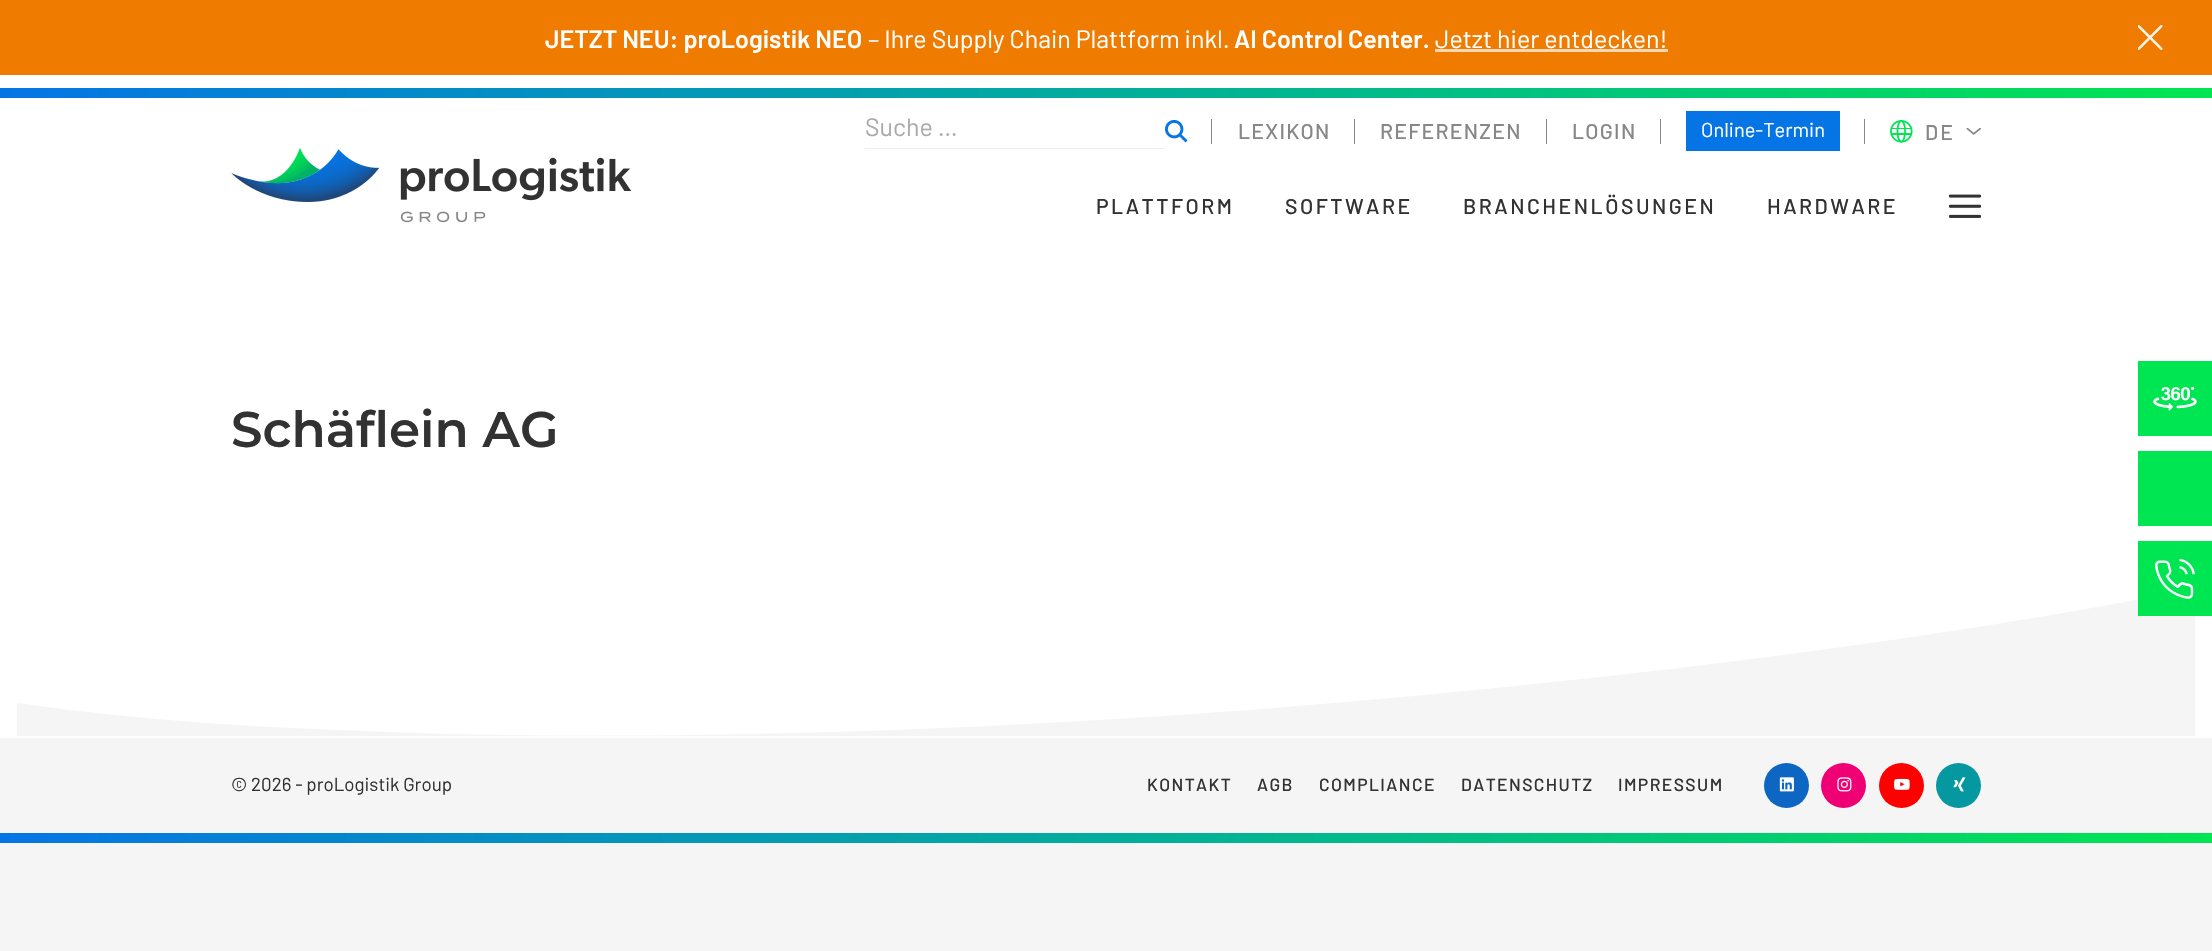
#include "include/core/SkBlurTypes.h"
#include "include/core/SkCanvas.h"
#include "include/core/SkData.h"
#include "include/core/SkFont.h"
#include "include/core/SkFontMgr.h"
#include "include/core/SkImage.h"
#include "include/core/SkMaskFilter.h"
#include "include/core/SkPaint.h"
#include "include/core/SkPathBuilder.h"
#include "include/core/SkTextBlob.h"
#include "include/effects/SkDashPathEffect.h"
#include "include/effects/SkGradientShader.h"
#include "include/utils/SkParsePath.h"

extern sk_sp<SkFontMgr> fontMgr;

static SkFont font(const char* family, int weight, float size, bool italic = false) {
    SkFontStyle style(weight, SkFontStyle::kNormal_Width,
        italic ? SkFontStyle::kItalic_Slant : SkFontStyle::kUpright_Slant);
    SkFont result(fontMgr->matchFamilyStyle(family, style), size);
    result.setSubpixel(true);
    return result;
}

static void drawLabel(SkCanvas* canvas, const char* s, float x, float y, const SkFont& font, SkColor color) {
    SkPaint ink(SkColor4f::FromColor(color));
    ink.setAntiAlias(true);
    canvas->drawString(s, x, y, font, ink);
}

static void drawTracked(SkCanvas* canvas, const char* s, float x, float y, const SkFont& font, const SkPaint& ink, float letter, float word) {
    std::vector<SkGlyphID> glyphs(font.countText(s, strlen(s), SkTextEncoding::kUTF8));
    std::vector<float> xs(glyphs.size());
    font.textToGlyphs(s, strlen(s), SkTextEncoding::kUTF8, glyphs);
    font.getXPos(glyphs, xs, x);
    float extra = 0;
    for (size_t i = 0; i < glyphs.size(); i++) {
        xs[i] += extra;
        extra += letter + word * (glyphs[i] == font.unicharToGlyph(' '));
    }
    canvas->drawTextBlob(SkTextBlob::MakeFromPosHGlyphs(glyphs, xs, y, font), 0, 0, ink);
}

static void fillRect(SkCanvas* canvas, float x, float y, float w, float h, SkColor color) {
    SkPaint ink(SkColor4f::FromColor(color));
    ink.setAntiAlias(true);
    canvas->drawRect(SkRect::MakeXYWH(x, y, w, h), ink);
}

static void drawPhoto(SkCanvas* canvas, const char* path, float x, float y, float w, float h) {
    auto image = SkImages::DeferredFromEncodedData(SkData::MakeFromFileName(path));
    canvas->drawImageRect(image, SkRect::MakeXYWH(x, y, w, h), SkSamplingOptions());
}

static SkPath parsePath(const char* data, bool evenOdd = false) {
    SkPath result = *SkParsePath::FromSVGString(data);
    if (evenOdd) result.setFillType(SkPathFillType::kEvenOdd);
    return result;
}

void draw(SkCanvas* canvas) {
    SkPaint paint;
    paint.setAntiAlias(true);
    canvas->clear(0xFFF5F5F5);
    fillRect(canvas, 0, 75, 2212, 663, 0xFFFFFFFF);
    fillRect(canvas, 0, 0, 2212, 75, 0xFFEF7C00);
    SkFont font1 = font("Barlow", 600, 25);
    drawLabel(canvas, "JETZT NEU: proLogistik NEO", 545, 48, font1, 0xFFFFFFFF);
    SkFont font2 = font("Barlow", 400, 25);
    drawLabel(canvas, "– Ihre Supply Chain Plattform inkl.", 868, 48, font2, 0xFFFFFFFF);
    drawLabel(canvas, "AI Control Center.", 1234, 48, font1, 0xFFFFFFFF);
    drawLabel(canvas, "Jetzt hier entdecken!", 1435, 48, font2, 0xFFFFFFFF);
    fillRect(canvas, 1435, 49, 233, 3, 0xFFFAD8B3);
    drawPhoto(canvas, "assets/img1.png", 2138, 25, 25, 25);
    {
        const SkColor colors[] = {0xFF0575E5, 0xFF00E552};
        const float stops[] = {0, 1};
        const SkPoint ends[] = {{0, 93}, {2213, 92}};
        paint.setShader(SkGradientShader::MakeLinear(ends, colors, stops, 2, SkTileMode::kClamp));
        paint.setAlpha(255);
    }
    canvas->drawRect(SkRect::MakeXYWH(0, 88, 2212, 10), paint);
    fillRect(canvas, 865, 148, 300, 1, 0xFFEEEEEE);
    drawLabel(canvas, "Suche …", 865, 136, font2, 0xFFAAAAAA);
    drawPhoto(canvas, "assets/img2.png", 1165, 120, 23, 23);
    fillRect(canvas, 1211, 119, 1, 25, 0xFF878787);
    SkFont font3 = font("Barlow", 500, 21.25f);
    paint.setShader(nullptr);
    paint.setColor(0xFF878787);
    drawTracked(canvas, "LEXIKON", 1238, 139, font3, paint, 1.25f, 0);
    fillRect(canvas, 1354, 119, 1, 25, 0xFF878787);
    drawTracked(canvas, "REFERENZEN", 1380, 139, font3, paint, 1.25f, 0);
    fillRect(canvas, 1546, 119, 1, 25, 0xFF878787);
    drawTracked(canvas, "LOGIN", 1572, 139, font3, paint, 1.25f, 0);
    fillRect(canvas, 1660, 119, 1, 25, 0xFF878787);
    fillRect(canvas, 1686, 111, 154, 40, 0xFF0575E5);
    SkFont font4 = font("Barlow", 400, 20);
    drawLabel(canvas, "Online-Termin", 1701, 137, font4, 0xFFFFFFFF);
    fillRect(canvas, 1864, 119, 1, 25, 0xFF878787);
    drawPhoto(canvas, "assets/img3.png", 1890, 120, 23, 23);
    drawTracked(canvas, "DE", 1925, 140, font3, paint, 2, 0);
    drawPhoto(canvas, "assets/img4.png", 1966, 128, 15, 7);
    drawPhoto(canvas, "assets/img5.png", 231, 148, 400, 75);
    paint.setColor(0xFF323232);
    drawTracked(canvas, "PLATTFORM", 1096, 214, font3, paint, 2.5f, 0);
    drawTracked(canvas, "SOFTWARE", 1285, 214, font3, paint, 2.5f, 0);
    drawTracked(canvas, "BRANCHENLÖSUNGEN", 1463, 214, font3, paint, 2.5f, 0);
    drawTracked(canvas, "HARDWARE", 1767, 214, font3, paint, 2.5f, 0);
    drawPhoto(canvas, "assets/img6.png", 1949, 194, 32, 24);
    SkFont font5 = font("Montserrat", 100, 50);
    drawLabel(canvas, "Schäflein AG", 231, 447, font5, 0xFF323232);
    fillRect(canvas, 2138, 361, 74, 75, 0xFF00E552);
    drawPhoto(canvas, "assets/img7.png", 2153, 386, 44, 25);
    fillRect(canvas, 2138, 451, 74, 75, 0xFF00E552);
    paint.setColor(0xFFF5F5F5);
    canvas->drawPath(parsePath("M17 736H2195V589C1999 627 1800 655 1601 677C1367 703 1132 721 897 730C728 736 558 738 388 732C264 728 140 721 17 703V720"), paint);
    fillRect(canvas, 2138, 541, 74, 75, 0xFF00E552);
    drawPhoto(canvas, "assets/img8.png", 2155, 559, 40, 40);
    SkFont font6 = font("Barlow", 400, 18.75f);
    drawLabel(canvas, "© 2026 - proLogistik Group", 231, 791, font6, 0xFF323232);
    SkFont font7 = font("Barlow", 500, 17.5f);
    paint.setColor(0xFF323232);
    drawTracked(canvas, "KONTAKT", 1147, 791, font7, paint, 1.4f, 0);
    drawTracked(canvas, "AGB", 1257, 791, font7, paint, 1.4f, 0);
    drawTracked(canvas, "COMPLIANCE", 1319, 791, font7, paint, 1.4f, 0);
    drawTracked(canvas, "DATENSCHUTZ", 1461, 791, font7, paint, 1.4f, 0);
    drawTracked(canvas, "IMPRESSUM", 1618, 791, font7, paint, 1.4f, 0);
    paint.setColor(0xFF0D66C2);
    canvas->drawCircle(1786.5f, 785.5f, 22.5f, paint);
    drawPhoto(canvas, "assets/img9.png", 1779, 777, 15, 15);
    paint.setColor(0xFFF00075);
    canvas->drawCircle(1843.5f, 785.5f, 22.5f, paint);
    drawPhoto(canvas, "assets/img10.png", 1837, 777, 15, 15);
    paint.setColor(0xFFFF0000);
    canvas->drawCircle(1901.5f, 785.5f, 22.5f, paint);
    drawPhoto(canvas, "assets/img11.png", 1894, 778, 16, 12);
    paint.setColor(0xFF0698A0);
    canvas->drawCircle(1958.5f, 785.5f, 22.5f, paint);
    drawPhoto(canvas, "assets/img12.png", 1953, 777, 13, 15);
    {
        const SkColor colors[] = {0xFF0575E5, 0xFF00E552};
        const float stops[] = {0, 1};
        const SkPoint ends[] = {{0, 838}, {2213, 838}};
        paint.setShader(SkGradientShader::MakeLinear(ends, colors, stops, 2, SkTileMode::kClamp));
        paint.setAlpha(255);
    }
    canvas->drawRect(SkRect::MakeXYWH(0, 833, 2212, 10), paint);
}
